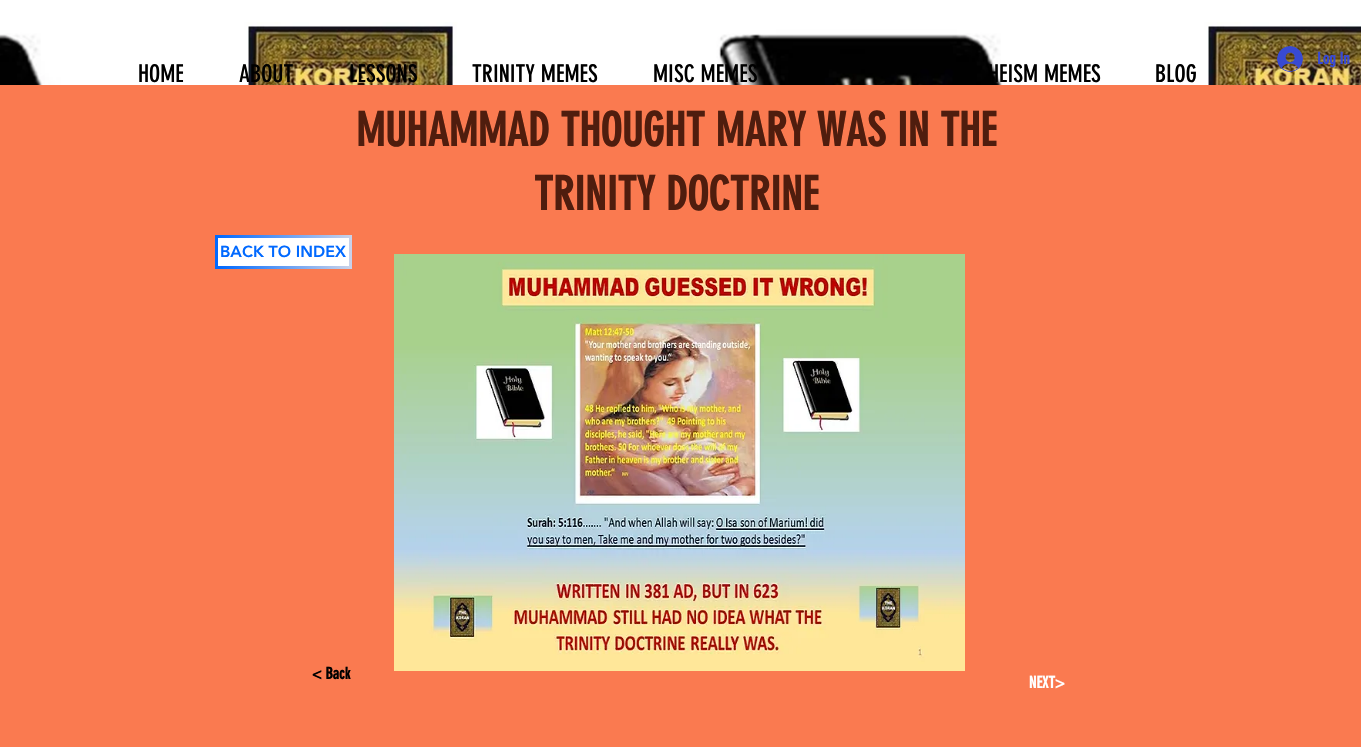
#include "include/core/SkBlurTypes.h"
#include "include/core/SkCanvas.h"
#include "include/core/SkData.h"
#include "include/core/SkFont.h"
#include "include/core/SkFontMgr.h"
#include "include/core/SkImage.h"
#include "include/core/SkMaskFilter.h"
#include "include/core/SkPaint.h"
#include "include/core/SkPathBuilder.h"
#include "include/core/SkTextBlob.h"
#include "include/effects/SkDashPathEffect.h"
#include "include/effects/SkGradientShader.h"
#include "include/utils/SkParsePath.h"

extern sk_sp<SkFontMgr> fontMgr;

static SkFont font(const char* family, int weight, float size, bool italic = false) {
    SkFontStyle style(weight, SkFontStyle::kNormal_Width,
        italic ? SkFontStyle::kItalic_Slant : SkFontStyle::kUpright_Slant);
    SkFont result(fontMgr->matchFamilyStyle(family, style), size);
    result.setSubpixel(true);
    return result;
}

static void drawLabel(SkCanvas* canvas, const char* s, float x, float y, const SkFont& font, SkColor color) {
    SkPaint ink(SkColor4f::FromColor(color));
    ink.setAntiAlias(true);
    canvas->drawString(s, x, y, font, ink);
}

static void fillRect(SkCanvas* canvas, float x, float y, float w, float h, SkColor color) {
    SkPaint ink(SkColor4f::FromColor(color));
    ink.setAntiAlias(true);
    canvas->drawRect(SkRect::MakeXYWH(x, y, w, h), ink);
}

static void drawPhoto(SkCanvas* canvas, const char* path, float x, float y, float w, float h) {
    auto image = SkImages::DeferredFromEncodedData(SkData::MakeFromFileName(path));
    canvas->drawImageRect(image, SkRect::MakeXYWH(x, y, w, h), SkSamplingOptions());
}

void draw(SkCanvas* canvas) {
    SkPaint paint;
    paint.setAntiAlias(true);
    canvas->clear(0xFFFFFFFF);
    drawPhoto(canvas, "assets/img1.png", 0, 22, 1361, 63);
    drawPhoto(canvas, "assets/img2.png", 1277, 46, 26, 26);
    SkFont font1 = font("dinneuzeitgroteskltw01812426", 700, 16);
    drawLabel(canvas, "Log In", 1317, 64, font1, 0xFF384AD3);
    SkFont font2 = font("dinneuzeitgroteskltw01812426", 400, 24);
    drawLabel(canvas, "HOME", 138, 82, font2, 0xFF000000);
    drawLabel(canvas, "ABOUT", 239, 82, font2, 0xFF000000);
    drawLabel(canvas, "LESSONS", 349, 82, font2, 0xFF000000);
    drawLabel(canvas, "TRINITY MEMES", 472, 82, font2, 0xFF000000);
    drawLabel(canvas, "MISC MEMES", 653, 82, font2, 0xFF000000);
    drawLabel(canvas, "HEISM MEMES", 988, 82, font2, 0xFF000000);
    drawLabel(canvas, "BLOG", 1155, 82, font2, 0xFF000000);
    fillRect(canvas, 0, 85, 1361, 662, 0xFFFA7A50);
    SkFont font3 = font("dinneuzeitgroteskltw01812426", 700, 46);
    drawLabel(canvas, "MUHAMMAD THOUGHT MARY WAS IN THE", 356, 146, font3, 0xFF4F1D0E);
    drawLabel(canvas, "TRINITY DOCTRINE", 534, 210, font3, 0xFF4F1D0E);
    fillRect(canvas, 218, 238, 131, 28, 0xFFFFFFFF);
    drawPhoto(canvas, "assets/img3.png", 215, 235, 137, 34);
    SkFont font4 = font("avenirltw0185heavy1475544", 900, 16);
    drawLabel(canvas, "BACK TO INDEX", 220, 257, font4, 0xFF0069FF);
    drawPhoto(canvas, "assets/img4.png", 394, 254, 571, 417);
    drawLabel(canvas, "< Back", 312, 679, font1, 0xFF000000);
    drawLabel(canvas, "NEXT>", 1029, 688, font1, 0xFFFFFFFF);
}
